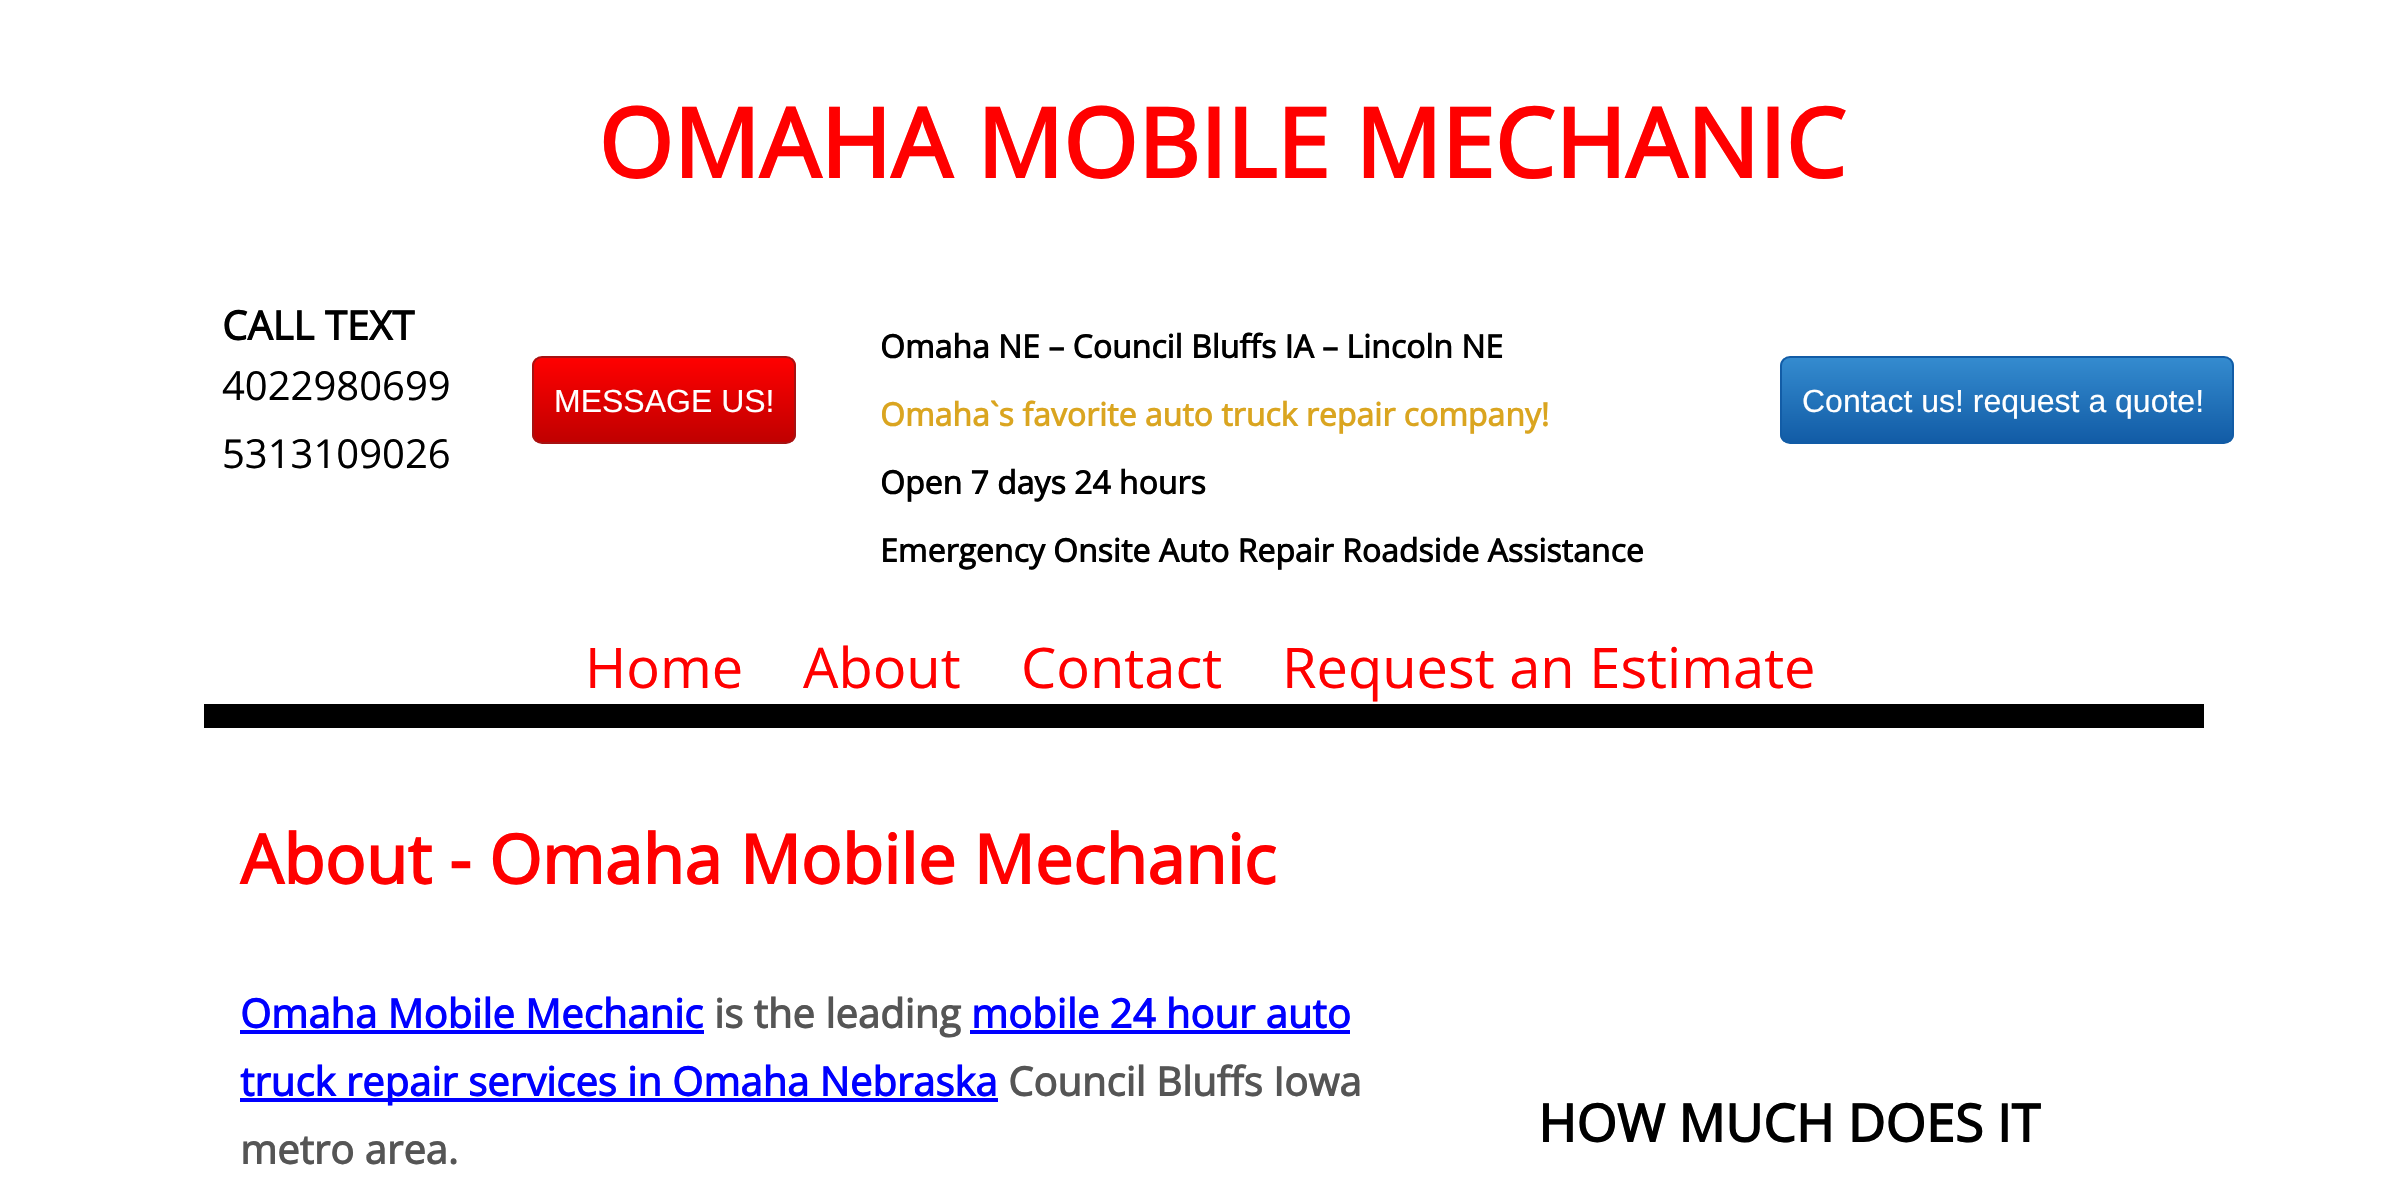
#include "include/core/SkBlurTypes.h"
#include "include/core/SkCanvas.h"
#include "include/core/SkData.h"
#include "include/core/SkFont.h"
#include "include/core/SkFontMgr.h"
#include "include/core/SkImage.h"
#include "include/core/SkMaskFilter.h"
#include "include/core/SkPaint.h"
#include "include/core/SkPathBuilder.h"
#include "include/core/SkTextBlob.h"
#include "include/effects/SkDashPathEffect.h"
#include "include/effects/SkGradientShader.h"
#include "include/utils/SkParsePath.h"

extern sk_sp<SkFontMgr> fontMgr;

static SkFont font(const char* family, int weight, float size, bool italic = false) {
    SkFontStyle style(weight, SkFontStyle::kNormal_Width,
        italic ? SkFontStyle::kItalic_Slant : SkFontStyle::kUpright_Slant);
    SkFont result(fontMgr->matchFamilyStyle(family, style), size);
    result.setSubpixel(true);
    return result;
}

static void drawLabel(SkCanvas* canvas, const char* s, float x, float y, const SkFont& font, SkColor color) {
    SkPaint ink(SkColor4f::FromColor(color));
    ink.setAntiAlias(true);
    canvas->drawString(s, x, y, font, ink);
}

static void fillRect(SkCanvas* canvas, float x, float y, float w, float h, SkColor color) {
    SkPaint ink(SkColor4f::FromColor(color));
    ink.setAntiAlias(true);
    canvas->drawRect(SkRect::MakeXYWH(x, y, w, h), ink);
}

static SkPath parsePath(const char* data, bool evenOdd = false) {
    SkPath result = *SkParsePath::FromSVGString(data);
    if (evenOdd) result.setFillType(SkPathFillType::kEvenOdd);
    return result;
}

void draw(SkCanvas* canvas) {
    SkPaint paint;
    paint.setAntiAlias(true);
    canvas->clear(0xFFFFFFFF);
    SkFont font1 = font("Open Sans", 700, 96);
    drawLabel(canvas, "OMAHA MOBILE MECHANIC", 598, 178, font1, 0xFFFF0000);
    SkFont font2 = font("Open Sans", 700, 40);
    drawLabel(canvas, "CALL TEXT", 222, 340, font2, 0xFF000000);
    SkFont font3 = font("Open Sans", 400, 40);
    drawLabel(canvas, "4022980699", 222, 400, font3, 0xFF000000);
    drawLabel(canvas, "5313109026", 222, 468, font3, 0xFF000000);
    canvas->save();
    canvas->clipPath(parsePath("M542 356H786C791.5 356 796 360.5 796 366V434C796 439.5 791.5 444 786 444H542C536.5 444 532 439.5 532 434V366C532 360.5 536.5 356 542 356Z"), true);
    {
        const SkColor colors[] = {0xFFFF0000, 0xFFC00000};
        const float stops[] = {0, 1};
        const SkPoint ends[] = {{664, 358}, {664, 442}};
        paint.setShader(SkGradientShader::MakeLinear(ends, colors, stops, 2, SkTileMode::kClamp));
        paint.setAlpha(255);
    }
    canvas->drawRect(SkRect::MakeXYWH(532, 358, 264, 84), paint);
    canvas->restore();
    paint.setStroke(true);
    paint.setStrokeWidth(2);
    paint.setShader(nullptr);
    paint.setColor(0xFFA61212);
    canvas->drawRoundRect(SkRect::MakeXYWH(533, 357, 262, 86), 9, 9, paint);
    SkFont font4 = font("Liberation Sans", 400, 32);
    drawLabel(canvas, "MESSAGE US!", 554, 412, font4, 0xFFFFFFFF);
    SkFont font5 = font("Open Sans", 700, 32);
    drawLabel(canvas, "Omaha NE – Council Bluffs IA – Lincoln NE", 880, 358, font5, 0xFF000000);
    drawLabel(canvas, "Omaha`s favorite auto truck repair company!", 880, 426, font5, 0xFFDAA520);
    drawLabel(canvas, "Open 7 days 24 hours", 880, 494, font5, 0xFF000000);
    drawLabel(canvas, "Emergency Onsite Auto Repair Roadside Assistance", 880, 562, font5, 0xFF000000);
    canvas->save();
    canvas->clipPath(parsePath("M1790 356H2224C2229.5 356 2234 360.5 2234 366V434C2234 439.5 2229.5 444 2224 444H1790C1784.5 444 1780 439.5 1780 434V366C1780 360.5 1784.5 356 1790 356Z"), true);
    paint.setStroke(false);
    {
        const SkColor colors[] = {0xFF348BCF, 0xFF125CA6};
        const float stops[] = {0, 1};
        const SkPoint ends[] = {{2007, 358}, {2007, 442}};
        paint.setShader(SkGradientShader::MakeLinear(ends, colors, stops, 2, SkTileMode::kClamp));
        paint.setAlpha(255);
    }
    canvas->drawRect(SkRect::MakeXYWH(1780, 358, 454, 84), paint);
    canvas->restore();
    paint.setStroke(true);
    paint.setShader(nullptr);
    paint.setColor(0xFF125CA6);
    canvas->drawRoundRect(SkRect::MakeXYWH(1781, 357, 452, 86), 9, 9, paint);
    drawLabel(canvas, "Contact us! request a quote!", 1802, 412, font4, 0xFFFFFFFF);
    SkFont font6 = font("Open Sans", 400, 56);
    drawLabel(canvas, "Home", 585, 688, font6, 0xFFFF0000);
    drawLabel(canvas, "About", 803, 688, font6, 0xFFFF0000);
    drawLabel(canvas, "Contact", 1021, 688, font6, 0xFFFF0000);
    drawLabel(canvas, "Request an Estimate", 1282, 688, font6, 0xFFFF0000);
    fillRect(canvas, 204, 704, 2000, 24, 0xFF000000);
    SkFont font7 = font("Open Sans", 700, 68);
    drawLabel(canvas, "About - Omaha Mobile Mechanic", 240, 884, font7, 0xFFFF0000);
    drawLabel(canvas, "Omaha Mobile Mechanic", 240, 1028, font2, 0xFF0000FF);
    fillRect(canvas, 240, 1030, 464, 4, 0xFF0000FF);
    drawLabel(canvas, "is the leading", 714, 1028, font2, 0xFF555555);
    drawLabel(canvas, "mobile 24 hour auto", 971, 1028, font2, 0xFF0000FF);
    fillRect(canvas, 970, 1030, 380, 4, 0xFF0000FF);
    fillRect(canvas, 240, 1098, 758, 4, 0xFF0000FF);
    drawLabel(canvas, "truck repair services in Omaha Nebraska", 240, 1096, font2, 0xFF0000FF);
    drawLabel(canvas, "Council Bluffs Iowa", 1008, 1096, font2, 0xFF555555);
    drawLabel(canvas, "metro area.", 240, 1164, font2, 0xFF555555);
    SkFont font8 = font("Open Sans", 700, 52);
    drawLabel(canvas, "HOW MUCH DOES IT", 1538, 1142, font8, 0xFF000000);
}
